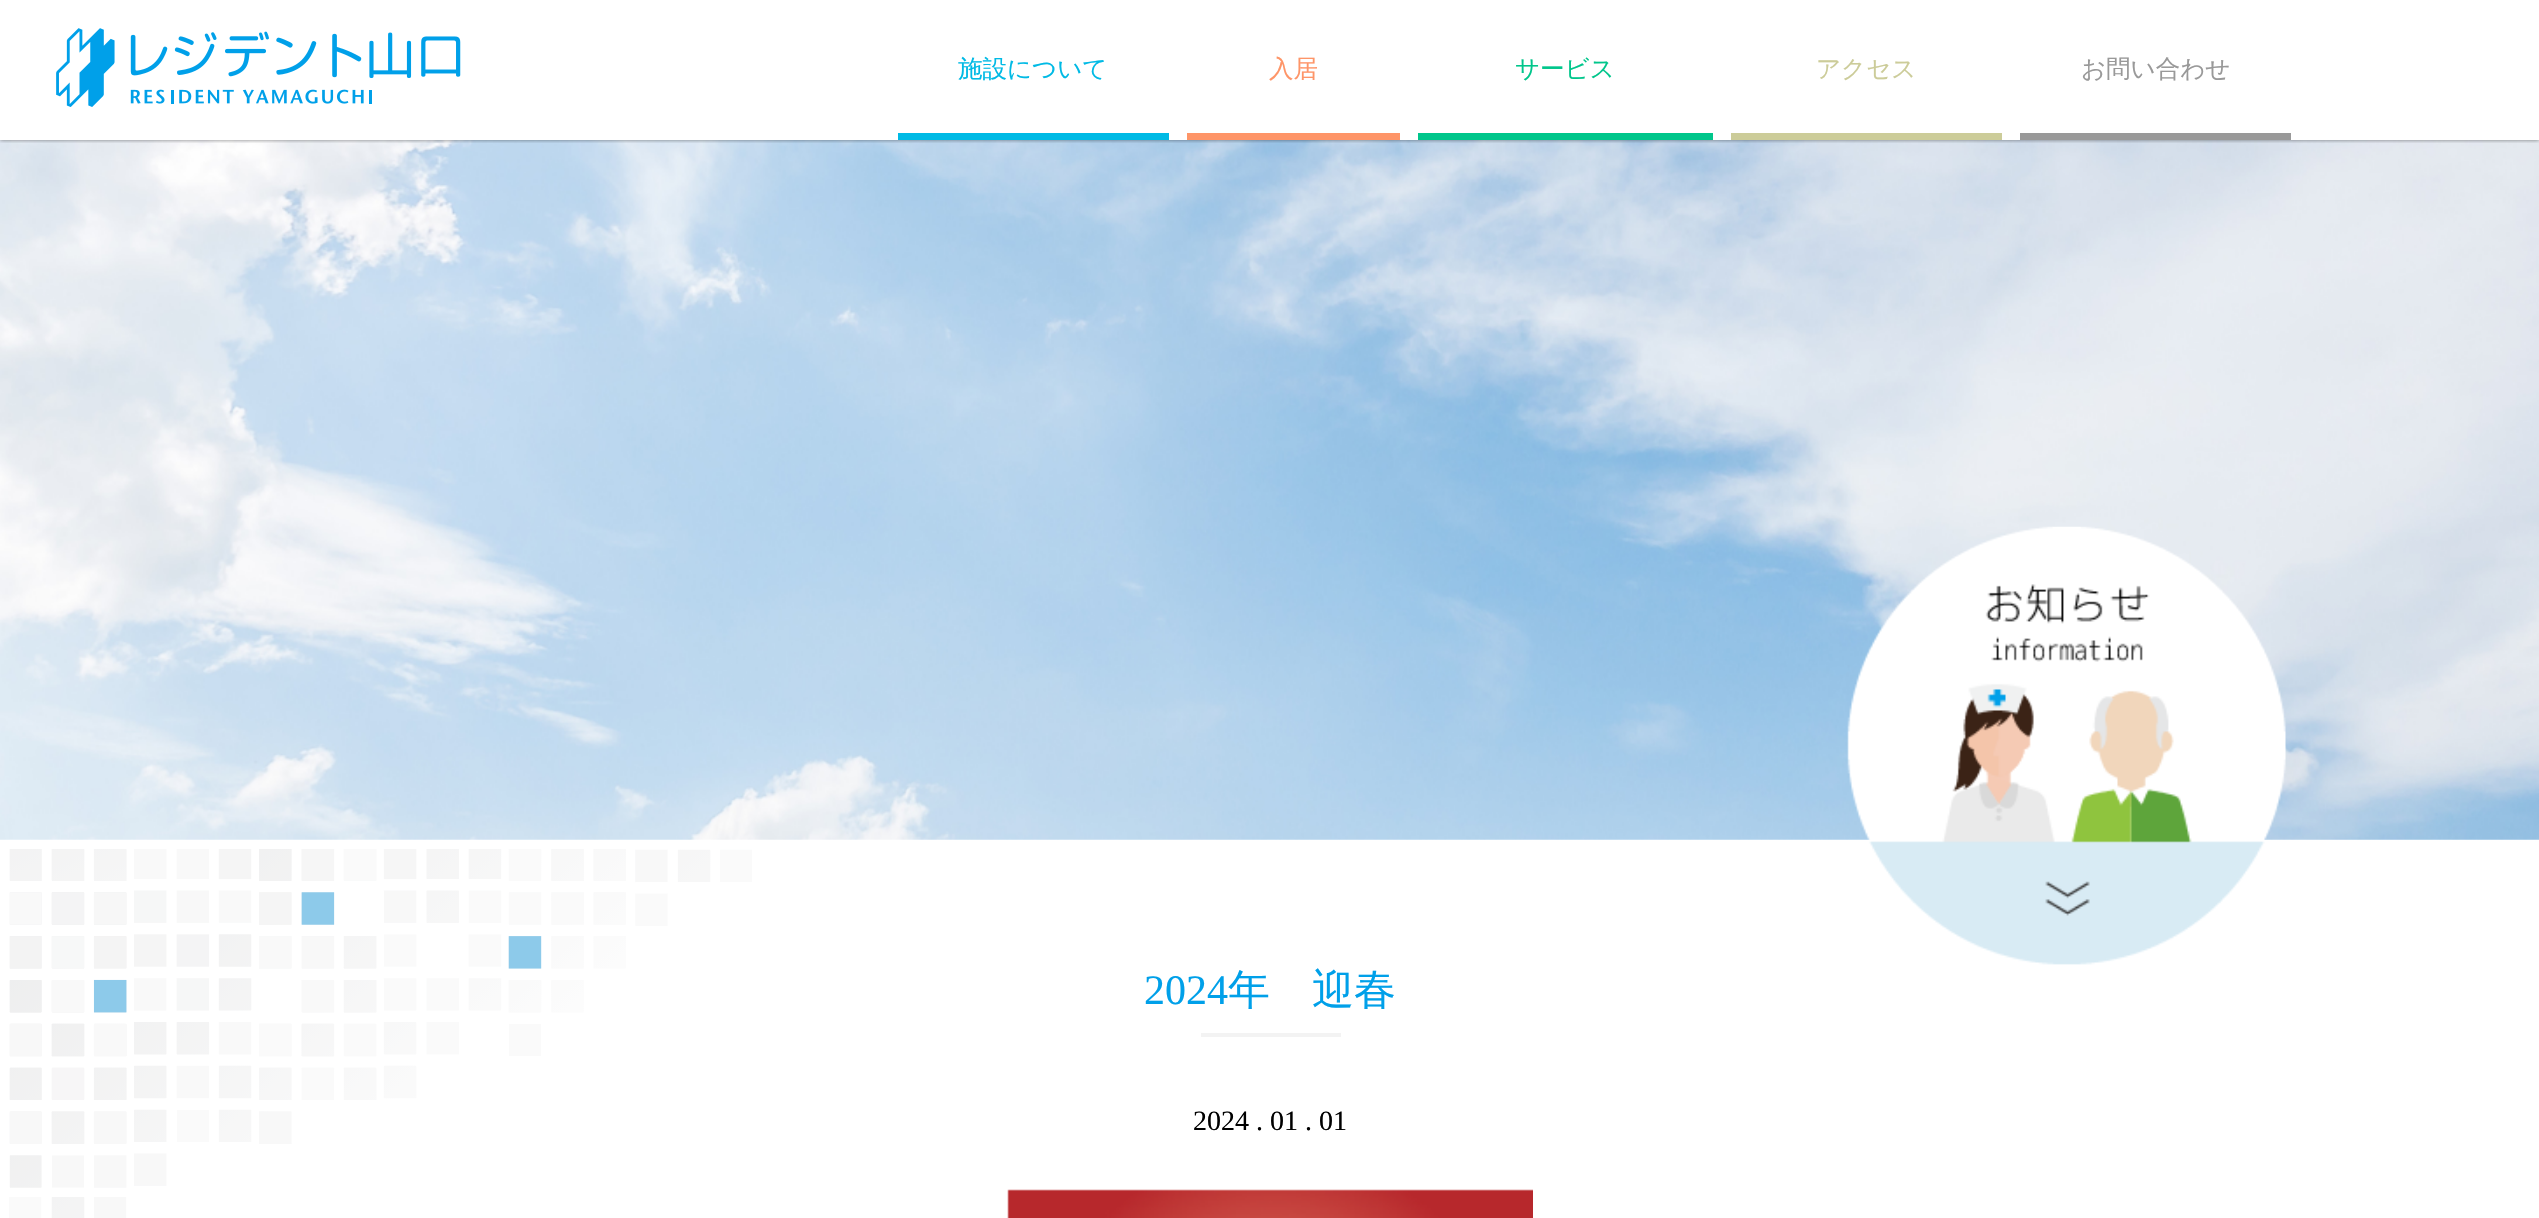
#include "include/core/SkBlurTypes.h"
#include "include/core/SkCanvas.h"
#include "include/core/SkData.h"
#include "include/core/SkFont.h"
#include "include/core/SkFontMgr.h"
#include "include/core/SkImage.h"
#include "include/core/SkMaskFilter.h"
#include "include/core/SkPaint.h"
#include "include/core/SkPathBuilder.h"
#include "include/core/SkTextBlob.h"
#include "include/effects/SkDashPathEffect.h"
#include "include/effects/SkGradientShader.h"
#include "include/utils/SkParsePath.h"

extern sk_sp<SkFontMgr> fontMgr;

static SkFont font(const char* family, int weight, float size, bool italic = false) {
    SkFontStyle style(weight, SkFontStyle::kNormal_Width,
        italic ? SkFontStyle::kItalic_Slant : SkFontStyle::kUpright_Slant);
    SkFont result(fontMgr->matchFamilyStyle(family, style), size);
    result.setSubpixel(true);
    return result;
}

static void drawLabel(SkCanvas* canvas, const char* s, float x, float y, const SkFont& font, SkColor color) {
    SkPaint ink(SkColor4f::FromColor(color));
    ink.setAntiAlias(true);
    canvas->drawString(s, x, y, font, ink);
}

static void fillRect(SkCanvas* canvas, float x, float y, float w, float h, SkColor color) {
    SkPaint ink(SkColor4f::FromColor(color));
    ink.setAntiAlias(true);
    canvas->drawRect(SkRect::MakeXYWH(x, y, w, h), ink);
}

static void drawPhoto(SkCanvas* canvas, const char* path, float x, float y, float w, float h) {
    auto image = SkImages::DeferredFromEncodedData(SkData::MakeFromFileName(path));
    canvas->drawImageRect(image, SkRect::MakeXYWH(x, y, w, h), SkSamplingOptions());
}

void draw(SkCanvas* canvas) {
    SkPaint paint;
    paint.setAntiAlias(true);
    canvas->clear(0xFFFFFFFF);
    drawPhoto(canvas, "assets/img2.png", 0, 140, 2539, 700);
    canvas->save();
    canvas->clipRect(SkRect::MakeXYWH(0, 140, 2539, 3));
    paint.setColor(0x80000000);
    paint.setMaskFilter(SkMaskFilter::MakeBlur(kNormal_SkBlurStyle, 2));
    canvas->drawRect(SkRect::MakeXYWH(0, 0, 2539, 140), paint);
    paint.setMaskFilter(nullptr);
    canvas->restore();
    drawPhoto(canvas, "assets/img1.png", 56, 28, 405, 79);
    fillRect(canvas, 898, 133, 271, 7, 0xFF00BAE5);
    SkFont font1 = font("WenQuanYi Zen Hei", 500, 24.5f);
    drawLabel(canvas, "施設について", 958, 77, font1, 0xFF00BAE5);
    fillRect(canvas, 1187, 133, 213, 7, 0xFFFE9568);
    drawLabel(canvas, "入居", 1269, 77, font1, 0xFFFE9568);
    fillRect(canvas, 1418, 133, 295, 7, 0xFF00C68B);
    drawLabel(canvas, "サービス", 1515, 77, font1, 0xFF00C68B);
    fillRect(canvas, 1731, 133, 271, 7, 0xFFCCCC99);
    drawLabel(canvas, "アクセス", 1816, 77, font1, 0xFFCCCC99);
    fillRect(canvas, 2020, 133, 271, 7, 0xFF999999);
    drawLabel(canvas, "お問い合わせ", 2081, 77, font1, 0xFF999999);
    drawPhoto(canvas, "assets/img3.png", 9, 849, 743, 369);
    drawPhoto(canvas, "assets/img4.png", 1847, 526, 439, 439);
    SkFont font2 = font("Liberation Serif", 400, 42);
    drawLabel(canvas, "2024", 1144, 1004, font2, 0xFF00A0E9);
    SkFont font3 = font("WenQuanYi Zen Hei", 500, 42);
    drawLabel(canvas, "年　迎春", 1228, 1004, font3, 0xFF00A0E9);
    fillRect(canvas, 1201, 1033, 140, 4, 0xFFF3F3F3);
    SkFont font4 = font("Liberation Serif", 400, 28);
    drawLabel(canvas, "2024 . 01 . 01", 1193, 1130, font4, 0xFF000000);
    drawPhoto(canvas, "assets/img5.png", 1007, 1189, 526, 29);
}
